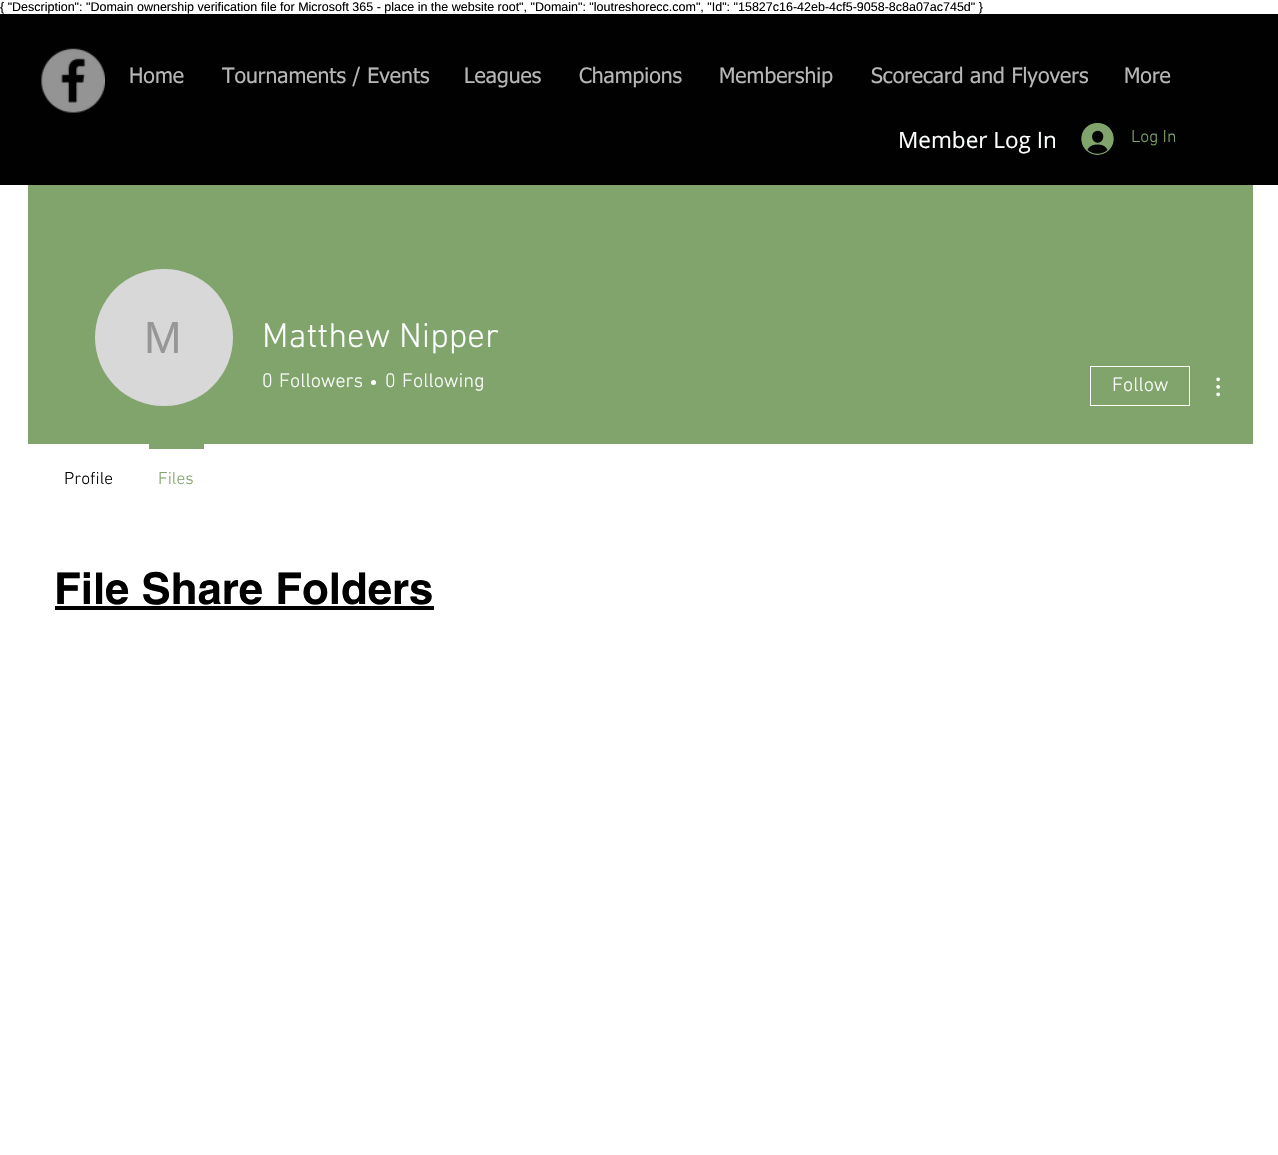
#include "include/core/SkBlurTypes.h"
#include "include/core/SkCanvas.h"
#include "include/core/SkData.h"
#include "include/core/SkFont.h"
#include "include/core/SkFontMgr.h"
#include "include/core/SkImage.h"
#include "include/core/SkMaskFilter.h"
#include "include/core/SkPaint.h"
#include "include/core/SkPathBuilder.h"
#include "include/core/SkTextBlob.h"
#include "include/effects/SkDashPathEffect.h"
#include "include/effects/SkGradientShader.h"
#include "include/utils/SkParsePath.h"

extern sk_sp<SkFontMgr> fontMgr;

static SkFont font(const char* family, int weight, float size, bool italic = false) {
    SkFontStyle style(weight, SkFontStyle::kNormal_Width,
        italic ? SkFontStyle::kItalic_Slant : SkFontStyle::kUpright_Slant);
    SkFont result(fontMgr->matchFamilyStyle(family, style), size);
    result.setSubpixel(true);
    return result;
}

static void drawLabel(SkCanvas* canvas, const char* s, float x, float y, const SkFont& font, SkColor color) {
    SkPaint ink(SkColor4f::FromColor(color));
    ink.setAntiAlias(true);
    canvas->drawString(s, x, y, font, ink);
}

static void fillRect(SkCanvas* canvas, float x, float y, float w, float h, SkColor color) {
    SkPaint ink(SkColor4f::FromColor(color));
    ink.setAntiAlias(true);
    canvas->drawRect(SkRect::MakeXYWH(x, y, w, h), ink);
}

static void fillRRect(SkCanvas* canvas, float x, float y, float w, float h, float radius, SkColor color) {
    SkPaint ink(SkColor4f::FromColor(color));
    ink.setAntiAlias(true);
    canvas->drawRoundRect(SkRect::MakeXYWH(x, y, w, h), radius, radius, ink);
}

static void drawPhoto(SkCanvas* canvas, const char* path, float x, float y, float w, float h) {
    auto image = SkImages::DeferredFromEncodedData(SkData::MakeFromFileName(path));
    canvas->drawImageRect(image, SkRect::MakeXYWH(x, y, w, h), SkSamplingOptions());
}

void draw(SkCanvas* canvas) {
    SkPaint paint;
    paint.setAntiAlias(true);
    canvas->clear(0xFFFFFFFF);
    SkFont font1 = font("Liberation Sans", 400, 12.5f);
    drawLabel(canvas, "{ \"Description\": \"Domain ownership verification file for Microsoft 365 - place in the website root\", \"Domain\": \"loutreshorecc.com\", \"Id\": \"15827c16-42eb-4cf5-9058-8c8a07ac745d\" }", 0, 11, font1, 0xFF000000);
    fillRect(canvas, 0, 14, 1278, 171, 0xFF010101);
    drawPhoto(canvas, "assets/img1.png", 41, 48, 64, 65);
    SkFont font2 = font("tahoma", 400, 21.25f);
    drawLabel(canvas, "Home", 129, 83, font2, 0xFFB7B6B6);
    drawLabel(canvas, "Tournaments / Events", 222, 83, font2, 0xFFB7B6B6);
    drawLabel(canvas, "Leagues", 464, 83, font2, 0xFFB7B6B6);
    drawLabel(canvas, "Champions", 579, 83, font2, 0xFFB7B6B6);
    drawLabel(canvas, "Membership", 719, 83, font2, 0xFFB7B6B6);
    drawLabel(canvas, "Scorecard and Flyovers", 871, 83, font2, 0xFFB7B6B6);
    drawLabel(canvas, "More", 1124, 83, font2, 0xFFB7B6B6);
    SkFont font3 = font("Open Sans", 400, 22.5f);
    drawLabel(canvas, "Member Log In", 898, 148, font3, 0xFFFEFFFF);
    drawPhoto(canvas, "assets/img2.png", 1081, 123, 33, 32);
    SkFont font4 = font("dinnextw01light", 300, 17.5f);
    drawLabel(canvas, "Log In", 1131, 142, font4, 0xFF80A46B);
    fillRect(canvas, 28, 185, 1225, 259, 0xFF80A46B);
    fillRRect(canvas, 95, 269, 138, 137, 68.5f, 0xFFD8D8D8);
    SkFont font5 = font("Liberation Sans", 400, 45);
    drawLabel(canvas, "M", 144, 353, font5, 0xFF979797);
    SkFont font6 = font("dinnextw01light", 300, 35);
    drawLabel(canvas, "Matthew Nipper", 262, 347, font6, 0xFFFEFFFF);
    SkFont font7 = font("dinnextw01light", 300, 20);
    drawLabel(canvas, "0", 262, 387, font7, 0xFFFEFFFF);
    drawLabel(canvas, "Followers", 279, 387, font7, 0xFFFEFFFF);
    paint.setColor(0xFFFEFFFF);
    canvas->drawCircle(373.5f, 382.5f, 2.5f, paint);
    drawLabel(canvas, "0", 385, 387, font7, 0xFFFEFFFF);
    drawLabel(canvas, "Following", 402, 387, font7, 0xFFFEFFFF);
    paint.setStroke(true);
    paint.setStrokeWidth(1);
    canvas->drawRect(SkRect::MakeXYWH(1090.5f, 366.5f, 99, 39), paint);
    drawLabel(canvas, "Follow", 1112, 391, font7, 0xFFFEFFFF);
    drawPhoto(canvas, "assets/img3.png", 1216, 377, 4, 20);
    drawLabel(canvas, "Profile", 64, 484, font4, 0xFF000000);
    fillRect(canvas, 149, 444, 55, 5, 0xFF80A46B);
    drawLabel(canvas, "Files", 158, 484, font4, 0xFF80A46B);
    SkFont font8 = font("helvetica", 700, 43.75f);
    drawLabel(canvas, "File Share Folders", 54, 604, font8, 0xFF000000);
    fillRect(canvas, 55, 606, 379, 4, 0xFF010101);
}
